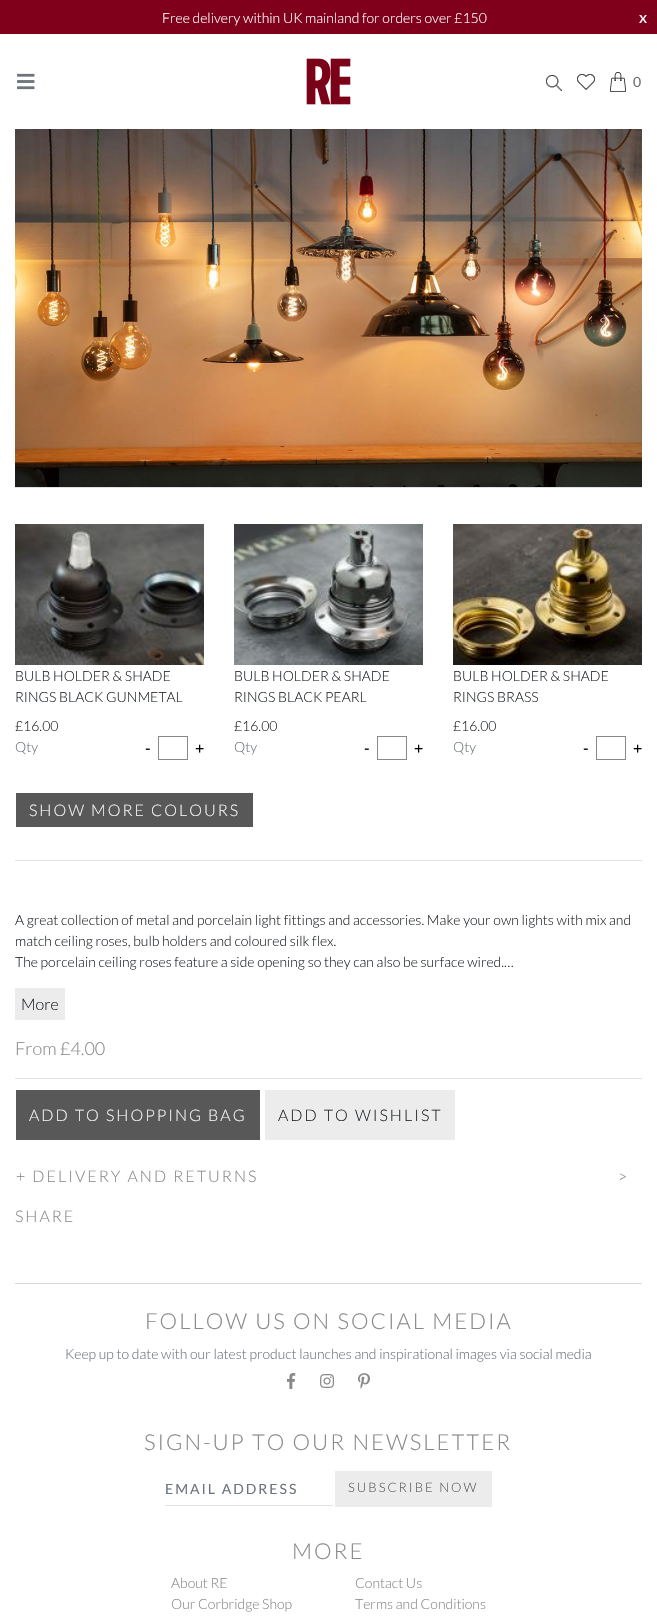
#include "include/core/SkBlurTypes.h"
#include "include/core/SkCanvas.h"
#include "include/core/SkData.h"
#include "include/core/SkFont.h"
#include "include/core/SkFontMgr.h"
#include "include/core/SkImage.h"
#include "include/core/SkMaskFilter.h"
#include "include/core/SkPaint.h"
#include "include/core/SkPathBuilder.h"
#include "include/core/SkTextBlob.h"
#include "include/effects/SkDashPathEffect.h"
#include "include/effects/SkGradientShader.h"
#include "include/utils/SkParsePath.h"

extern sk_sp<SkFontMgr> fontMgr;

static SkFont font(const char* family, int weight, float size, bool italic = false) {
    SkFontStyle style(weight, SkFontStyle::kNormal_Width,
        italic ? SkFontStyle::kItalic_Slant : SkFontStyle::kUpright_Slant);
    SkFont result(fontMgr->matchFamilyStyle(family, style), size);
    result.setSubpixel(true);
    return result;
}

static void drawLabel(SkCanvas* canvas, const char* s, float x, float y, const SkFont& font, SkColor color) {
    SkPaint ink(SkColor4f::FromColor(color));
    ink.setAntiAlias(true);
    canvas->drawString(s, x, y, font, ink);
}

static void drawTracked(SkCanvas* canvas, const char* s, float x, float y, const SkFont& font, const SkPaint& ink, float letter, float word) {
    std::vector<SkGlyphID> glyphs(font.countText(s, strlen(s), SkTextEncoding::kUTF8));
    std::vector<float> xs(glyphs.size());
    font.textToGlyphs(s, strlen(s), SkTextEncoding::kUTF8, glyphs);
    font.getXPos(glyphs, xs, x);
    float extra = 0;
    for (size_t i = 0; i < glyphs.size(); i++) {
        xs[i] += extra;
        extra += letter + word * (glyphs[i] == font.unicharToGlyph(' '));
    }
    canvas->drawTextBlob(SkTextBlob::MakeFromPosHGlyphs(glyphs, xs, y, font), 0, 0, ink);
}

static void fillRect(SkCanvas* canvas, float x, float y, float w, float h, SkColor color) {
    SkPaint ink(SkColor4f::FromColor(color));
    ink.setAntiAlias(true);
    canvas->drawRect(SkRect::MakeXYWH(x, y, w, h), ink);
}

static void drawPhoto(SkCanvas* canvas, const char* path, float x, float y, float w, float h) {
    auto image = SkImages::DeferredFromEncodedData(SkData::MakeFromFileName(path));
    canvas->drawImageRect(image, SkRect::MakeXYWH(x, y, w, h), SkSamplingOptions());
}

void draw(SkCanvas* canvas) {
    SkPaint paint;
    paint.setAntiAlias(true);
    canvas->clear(0xFFFFFFFF);
    fillRect(canvas, 0, 0, 657, 34, 0xFF80001B);
    SkFont font1 = font("Lato", 300, 14);
    drawLabel(canvas, "Free delivery within UK mainland for orders over £150", 162, 23, font1, 0xFFFFFFFF);
    SkFont font2 = font("Lato", 400, 16);
    drawLabel(canvas, "x", 639, 23, font2, 0xFFFFFFFF);
    drawPhoto(canvas, "assets/img1.png", 17, 73, 18, 17);
    drawPhoto(canvas, "assets/img2.png", 306, 58, 45, 47);
    drawPhoto(canvas, "assets/img3.png", 546, 75, 16, 16);
    drawPhoto(canvas, "assets/img4.png", 577, 74, 18, 16);
    drawPhoto(canvas, "assets/img5.png", 610, 72, 16, 20);
    SkFont font3 = font("Lato", 400, 14);
    drawLabel(canvas, "0", 633, 87, font3, 0xFF6D6D6D);
    drawPhoto(canvas, "assets/img6.png", 15, 129, 627, 358);
    fillRect(canvas, 15, 487, 627, 1, 0xFFDEE2E6);
    fillRect(canvas, 15, 860, 627, 1, 0xFFDEE2E6);
    drawPhoto(canvas, "assets/img7.png", 15, 524, 189, 141);
    drawLabel(canvas, "BULB HOLDER & SHADE", 15, 681, font1, 0xFF212529);
    drawLabel(canvas, "RINGS BLACK GUNMETAL", 15, 702, font1, 0xFF212529);
    drawLabel(canvas, "£16.00", 15, 731, font1, 0xFF212529);
    drawLabel(canvas, "Qty", 15, 752, font1, 0xFF6C757D);
    drawLabel(canvas, "-", 145, 754, font2, 0xFF000000);
    paint.setStroke(true);
    paint.setStrokeWidth(1);
    paint.setColor(0xFF898989);
    canvas->drawRect(SkRect::MakeXYWH(158.5f, 736.5f, 29, 23), paint);
    drawLabel(canvas, "+", 195, 754, font2, 0xFF000000);
    drawPhoto(canvas, "assets/img8.png", 234, 524, 189, 141);
    drawLabel(canvas, "BULB HOLDER & SHADE", 234, 681, font1, 0xFF212529);
    drawLabel(canvas, "RINGS BLACK PEARL", 234, 702, font1, 0xFF212529);
    drawLabel(canvas, "£16.00", 234, 731, font1, 0xFF212529);
    drawLabel(canvas, "Qty", 234, 752, font1, 0xFF6C757D);
    drawLabel(canvas, "-", 364, 754, font2, 0xFF000000);
    canvas->drawRect(SkRect::MakeXYWH(377.5f, 736.5f, 29, 23), paint);
    drawLabel(canvas, "+", 414, 754, font2, 0xFF000000);
    drawPhoto(canvas, "assets/img9.png", 453, 524, 189, 141);
    drawLabel(canvas, "BULB HOLDER & SHADE", 453, 681, font1, 0xFF212529);
    drawLabel(canvas, "RINGS BRASS", 453, 702, font1, 0xFF212529);
    drawLabel(canvas, "£16.00", 453, 731, font1, 0xFF212529);
    drawLabel(canvas, "Qty", 453, 752, font1, 0xFF6C757D);
    drawLabel(canvas, "-", 583, 754, font2, 0xFF000000);
    canvas->drawRect(SkRect::MakeXYWH(596.5f, 736.5f, 29, 23), paint);
    drawLabel(canvas, "+", 633, 754, font2, 0xFF000000);
    fillRect(canvas, 16, 793, 237, 34, 0xFF585858);
    SkFont font4 = font("Lato", 300, 16);
    paint.setStroke(false);
    paint.setColor(0xFFF3F3F2);
    drawTracked(canvas, "SHOW MORE COLOURS", 29, 816, font4, paint, 2, 0);
    fillRect(canvas, 15, 1078, 627, 1, 0xFFDEE2E6);
    drawLabel(canvas, "A great collection of metal and porcelain light fittings and accessories. Make your own lights with mix and", 15, 925, font1, 0xFF212529);
    drawLabel(canvas, "match ceiling roses, bulb holders and coloured silk flex.", 15, 946, font1, 0xFF212529);
    drawLabel(canvas, "The porcelain ceiling roses feature a side opening so they can also be surface wired.…", 15, 967, font1, 0xFF212529);
    fillRect(canvas, 15, 988, 50, 32, 0xFFECECEC);
    drawLabel(canvas, "More", 21, 1010, font4, 0xFF212529);
    SkFont font5 = font("Lato", 300, 18);
    drawLabel(canvas, "From £4.00", 15, 1055, font5, 0xFF898989);
    fillRect(canvas, 16, 1090, 244, 50, 0xFF585858);
    drawTracked(canvas, "ADD TO SHOPPING BAG", 29, 1121, font4, paint, 2, 0);
    fillRect(canvas, 265, 1090, 190, 50, 0xFFECECEC);
    paint.setColor(0xFF212529);
    drawTracked(canvas, "ADD TO WISHLIST", 278, 1121, font4, paint, 2, 0);
    paint.setColor(0xFF898989);
    drawTracked(canvas, "+ DELIVERY AND RETURNS", 16, 1182, font4, paint, 2, 0);
    drawTracked(canvas, ">", 618, 1182, font4, paint, 2, 0);
    drawTracked(canvas, "SHARE", 15, 1222, font4, paint, 2, 0);
    fillRect(canvas, 15, 1283, 627, 1, 0xFFD9D9D9);
    SkFont font6 = font("Lato", 300, 22);
    drawTracked(canvas, "FOLLOW US ON SOCIAL MEDIA", 145, 1329, font6, paint, 2, 0);
    drawLabel(canvas, "Keep up to date with our latest product launches and inspirational images via social media", 65, 1359, font1, 0xFF6C757D);
    drawPhoto(canvas, "assets/img10.png", 287, 1373, 9, 16);
    drawPhoto(canvas, "assets/img11.png", 320, 1374, 14, 14);
    drawPhoto(canvas, "assets/img12.png", 358, 1373, 12, 16);
    drawTracked(canvas, "SIGN-UP TO OUR NEWSLETTER", 144, 1450, font6, paint, 2, 0);
    fillRect(canvas, 165, 1505, 168, 1, 0xFFDEE2E6);
    paint.setColor(0xFF6C757D);
    drawTracked(canvas, "EMAIL ADDRESS", 165, 1494, font3, paint, 2, 0);
    fillRect(canvas, 335, 1471, 157, 36, 0xFFECECEC);
    SkFont font7 = font("Lato", 300, 13);
    paint.setColor(0xFF585858);
    drawTracked(canvas, "SUBSCRIBE NOW", 348, 1492, font7, paint, 2, 0);
    paint.setColor(0xFF898989);
    drawTracked(canvas, "MORE", 292, 1559, font6, paint, 2, 0);
    drawLabel(canvas, "About RE", 171, 1588, font1, 0xFF898989);
    drawLabel(canvas, "Our Corbridge Shop", 171, 1609, font1, 0xFF898989);
    drawLabel(canvas, "Contact Us", 355, 1588, font1, 0xFF898989);
    drawLabel(canvas, "Terms and Conditions", 355, 1609, font1, 0xFF898989);
}
